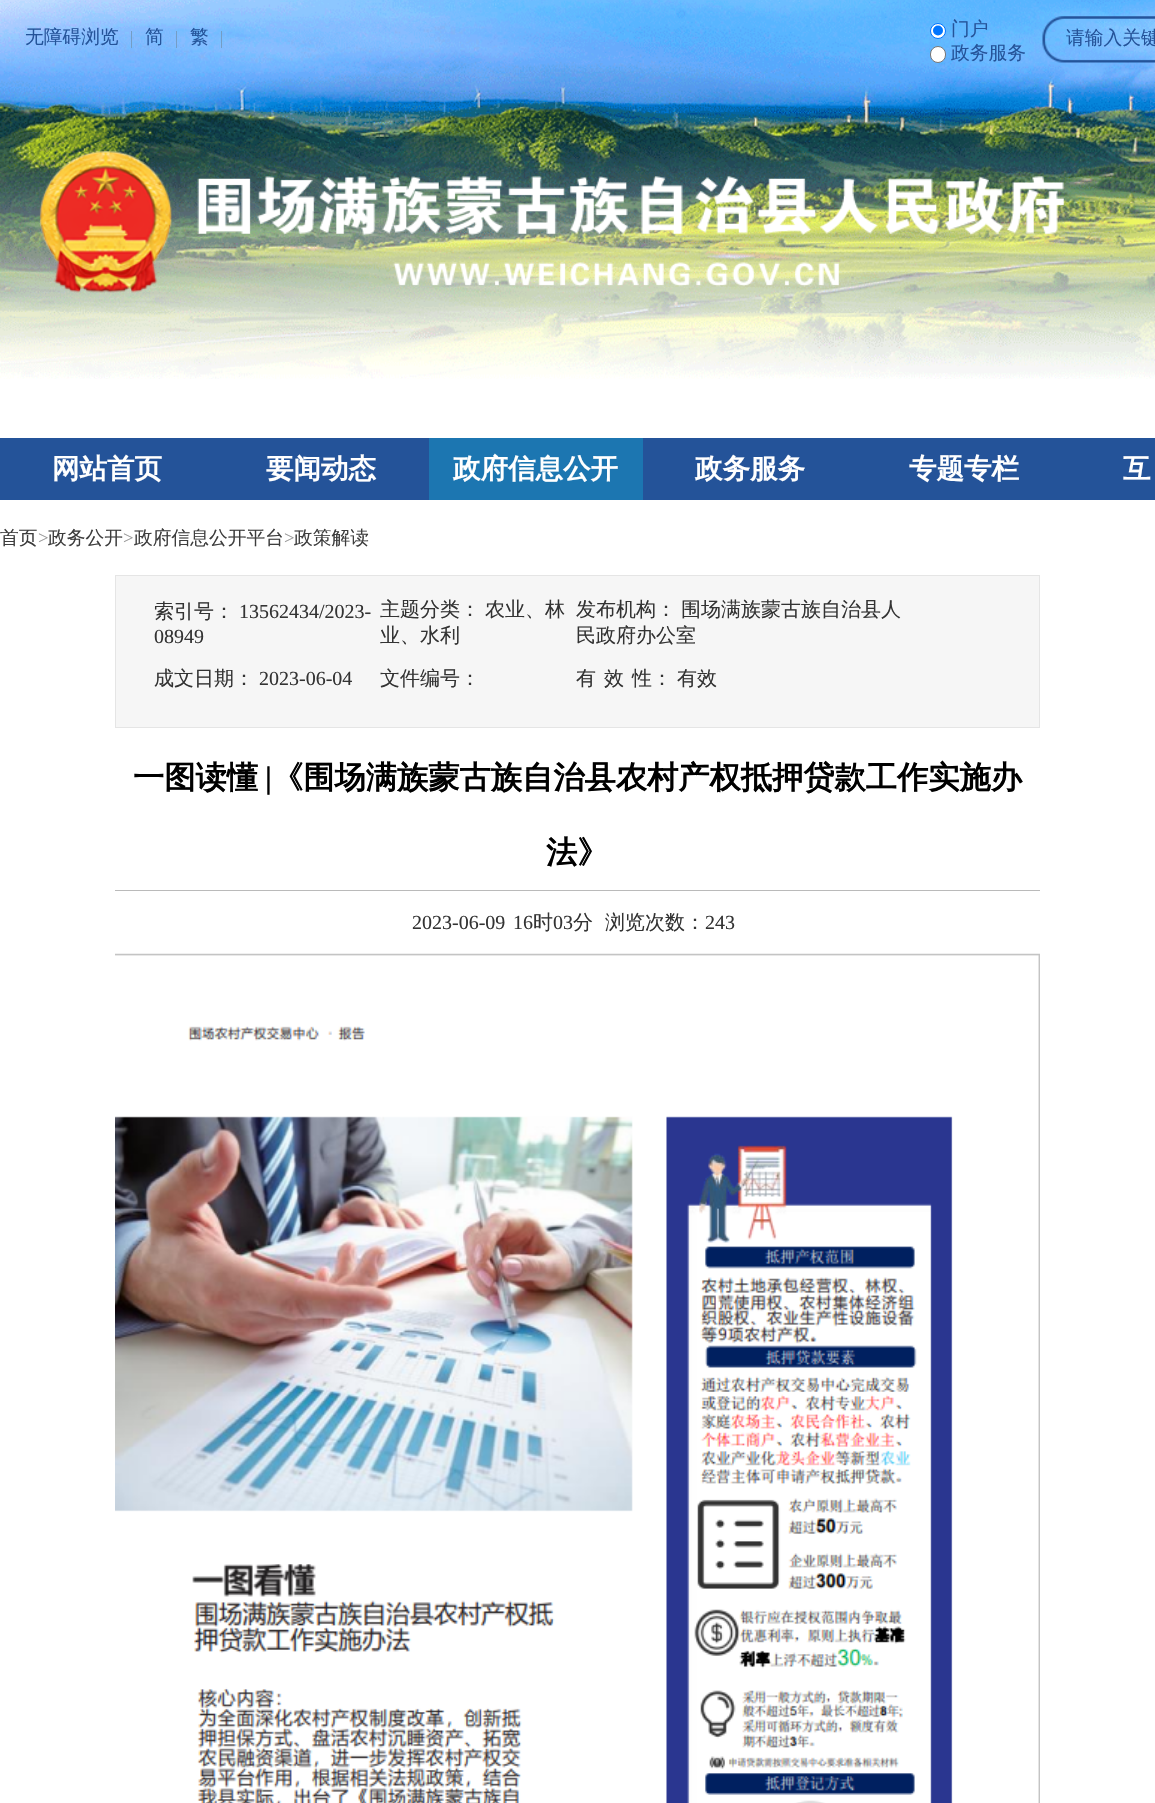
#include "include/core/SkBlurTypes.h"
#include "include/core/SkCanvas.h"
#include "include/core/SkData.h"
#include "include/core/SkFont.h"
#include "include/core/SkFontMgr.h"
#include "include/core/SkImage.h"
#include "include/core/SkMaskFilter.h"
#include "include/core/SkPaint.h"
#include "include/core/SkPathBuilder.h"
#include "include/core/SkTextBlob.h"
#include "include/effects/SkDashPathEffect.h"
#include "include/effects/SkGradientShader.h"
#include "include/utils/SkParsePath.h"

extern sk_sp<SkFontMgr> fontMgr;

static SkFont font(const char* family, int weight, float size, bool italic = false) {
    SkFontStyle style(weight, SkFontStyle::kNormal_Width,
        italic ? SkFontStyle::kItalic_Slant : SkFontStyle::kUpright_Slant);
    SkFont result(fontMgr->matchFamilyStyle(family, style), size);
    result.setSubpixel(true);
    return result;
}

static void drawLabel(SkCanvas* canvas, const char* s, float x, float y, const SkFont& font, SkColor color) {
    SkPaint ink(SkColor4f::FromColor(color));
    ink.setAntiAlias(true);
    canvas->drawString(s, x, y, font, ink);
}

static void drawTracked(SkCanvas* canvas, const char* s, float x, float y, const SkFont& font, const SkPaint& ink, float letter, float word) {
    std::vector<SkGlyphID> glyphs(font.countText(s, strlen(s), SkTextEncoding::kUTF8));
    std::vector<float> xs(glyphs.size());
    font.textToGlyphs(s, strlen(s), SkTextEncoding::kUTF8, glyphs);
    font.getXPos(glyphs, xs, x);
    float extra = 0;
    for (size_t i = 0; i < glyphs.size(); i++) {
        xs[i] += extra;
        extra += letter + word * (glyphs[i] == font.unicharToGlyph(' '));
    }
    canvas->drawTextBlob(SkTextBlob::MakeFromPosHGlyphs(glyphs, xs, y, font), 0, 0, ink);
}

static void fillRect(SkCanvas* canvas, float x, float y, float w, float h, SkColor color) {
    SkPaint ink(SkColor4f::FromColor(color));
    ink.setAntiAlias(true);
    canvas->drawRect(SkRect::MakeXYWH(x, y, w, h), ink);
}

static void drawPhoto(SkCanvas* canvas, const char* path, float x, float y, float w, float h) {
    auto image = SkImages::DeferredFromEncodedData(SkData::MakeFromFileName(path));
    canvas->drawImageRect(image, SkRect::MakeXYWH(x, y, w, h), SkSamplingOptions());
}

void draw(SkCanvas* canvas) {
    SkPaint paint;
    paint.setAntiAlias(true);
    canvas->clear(0xFFFFFFFF);
    drawPhoto(canvas, "assets/img1.png", 0, 0, 1155, 379);
    SkFont font1 = font("WenQuanYi Zen Hei", 500, 18.75f);
    drawLabel(canvas, "无障碍浏览", 25, 43, font1, 0xFF245399);
    fillRect(canvas, 131, 31, 1, 17, 0xFF749DC5);
    drawLabel(canvas, "简", 145, 43, font1, 0xFF245399);
    fillRect(canvas, 176, 31, 1, 17, 0xFF749DC5);
    drawLabel(canvas, "繁", 190, 43, font1, 0xFF245399);
    fillRect(canvas, 221, 31, 1, 17, 0xFF749DC5);
    paint.setColor(0xFFFFFFFF);
    canvas->drawCircle(938, 31, 7.5f, paint);
    paint.setStroke(true);
    paint.setStrokeWidth(1);
    paint.setColor(0xFF0075FF);
    canvas->drawCircle(938, 31, 7.5f, paint);
    paint.setStroke(false);
    canvas->drawCircle(938, 30.5f, 5, paint);
    drawLabel(canvas, "门户", 951, 35, font1, 0xFF245399);
    paint.setColor(0xFFFFFFFF);
    canvas->drawRoundRect(SkRect::MakeXYWH(930.5f, 46.5f, 15, 16), 7.5f, 7.5f, paint);
    paint.setStroke(true);
    paint.setColor(0xFF767676);
    canvas->drawRoundRect(SkRect::MakeXYWH(930.5f, 46.5f, 15, 16), 7.5f, 7.5f, paint);
    drawLabel(canvas, "政务服务", 951, 59, font1, 0xFF245399);
    drawPhoto(canvas, "assets/img2.png", 1042, 16, 113, 47);
    drawLabel(canvas, "请输入关键", 1066, 44, font1, 0xFF245399);
    drawPhoto(canvas, "assets/img3.png", 39, 151, 1025, 142);
    fillRect(canvas, 0, 438, 1155, 62, 0xFF245399);
    SkFont font2 = font("WenQuanYi Zen Hei", 700, 27.5f);
    drawLabel(canvas, "网站首页", 52, 478, font2, 0xFFFFFFFF);
    drawLabel(canvas, "要闻动态", 266, 478, font2, 0xFFFFFFFF);
    fillRect(canvas, 429, 438, 214, 62, 0xFF1C76B1);
    drawLabel(canvas, "政府信息公开", 453, 478, font2, 0xFFFFFFFF);
    drawLabel(canvas, "政务服务", 695, 478, font2, 0xFFFFFFFF);
    drawLabel(canvas, "专题专栏", 909, 478, font2, 0xFFFFFFFF);
    drawLabel(canvas, "互", 1123, 478, font2, 0xFFFFFFFF);
    drawLabel(canvas, "首页", 0, 544, font1, 0xFF3D3D3D);
    SkFont font3 = font("Liberation Serif", 400, 18.75f);
    drawLabel(canvas, ">", 38, 544, font3, 0xFF999999);
    drawLabel(canvas, "政务公开", 48, 544, font1, 0xFF3D3D3D);
    drawLabel(canvas, ">", 123, 544, font3, 0xFF999999);
    drawLabel(canvas, "政府信息公开平台", 134, 544, font1, 0xFF3D3D3D);
    drawLabel(canvas, ">", 284, 544, font3, 0xFF999999);
    drawLabel(canvas, "政策解读", 294, 544, font1, 0xFF3D3D3D);
    paint.setStroke(false);
    paint.setColor(0xFFF6F6F6);
    canvas->drawRect(SkRect::MakeXYWH(115.5f, 575.5f, 924, 152), paint);
    paint.setStroke(true);
    paint.setColor(0xFFE5E5E5);
    canvas->drawRect(SkRect::MakeXYWH(115.5f, 575.5f, 924, 152), paint);
    SkFont font4 = font("WenQuanYi Zen Hei", 500, 20);
    drawLabel(canvas, "索引号：", 154, 618, font4, 0xFF333333);
    SkFont font5 = font("Liberation Serif", 400, 20);
    drawLabel(canvas, "13562434/2023-", 239, 618, font5, 0xFF333333);
    drawLabel(canvas, "08949", 154, 643, font5, 0xFF333333);
    paint.setStroke(false);
    paint.setColor(0xFF333333);
    drawTracked(canvas, "主题分类： 农业、林", 380, 616, font4, paint, 0, -1);
    drawLabel(canvas, "业、水利", 380, 642, font4, 0xFF333333);
    drawTracked(canvas, "发布机构： 围场满族蒙古族自治县人", 576, 616, font4, paint, 0, -1);
    drawLabel(canvas, "民政府办公室", 576, 642, font4, 0xFF333333);
    drawLabel(canvas, "成文日期：", 154, 685, font4, 0xFF333333);
    drawLabel(canvas, "2023-06-04", 259, 685, font5, 0xFF333333);
    drawLabel(canvas, "文件编号：", 380, 685, font4, 0xFF333333);
    drawLabel(canvas, "有", 576, 685, font4, 0xFF333333);
    drawLabel(canvas, "效", 604, 685, font4, 0xFF333333);
    drawTracked(canvas, "性： 有效", 632, 685, font4, paint, 0, -1);
    fillRect(canvas, 115, 890, 925, 1, 0xFFBABABA);
    SkFont font6 = font("WenQuanYi Zen Hei", 700, 31.25f);
    drawLabel(canvas, "一图读懂", 133, 788, font6, 0xFF000000);
    SkFont font7 = font("Liberation Serif", 700, 31.25f);
    drawLabel(canvas, "|", 265, 788, font7, 0xFF000000);
    drawLabel(canvas, "《围场满族蒙古族自治县农村产权抵押贷款工作实施办", 272, 788, font6, 0xFF000000);
    drawLabel(canvas, "法》", 546, 863, font6, 0xFF000000);
    drawLabel(canvas, "2023-06-09", 412, 929, font5, 0xFF333333);
    drawLabel(canvas, "16", 513, 929, font5, 0xFF333333);
    drawLabel(canvas, "时", 533, 929, font4, 0xFF333333);
    drawLabel(canvas, "03", 553, 929, font5, 0xFF333333);
    drawLabel(canvas, "分", 573, 929, font4, 0xFF333333);
    drawLabel(canvas, "浏览次数：", 605, 929, font4, 0xFF333333);
    drawLabel(canvas, "243", 705, 929, font5, 0xFF333333);
    drawPhoto(canvas, "assets/img4.png", 115, 953, 925, 850);
}
